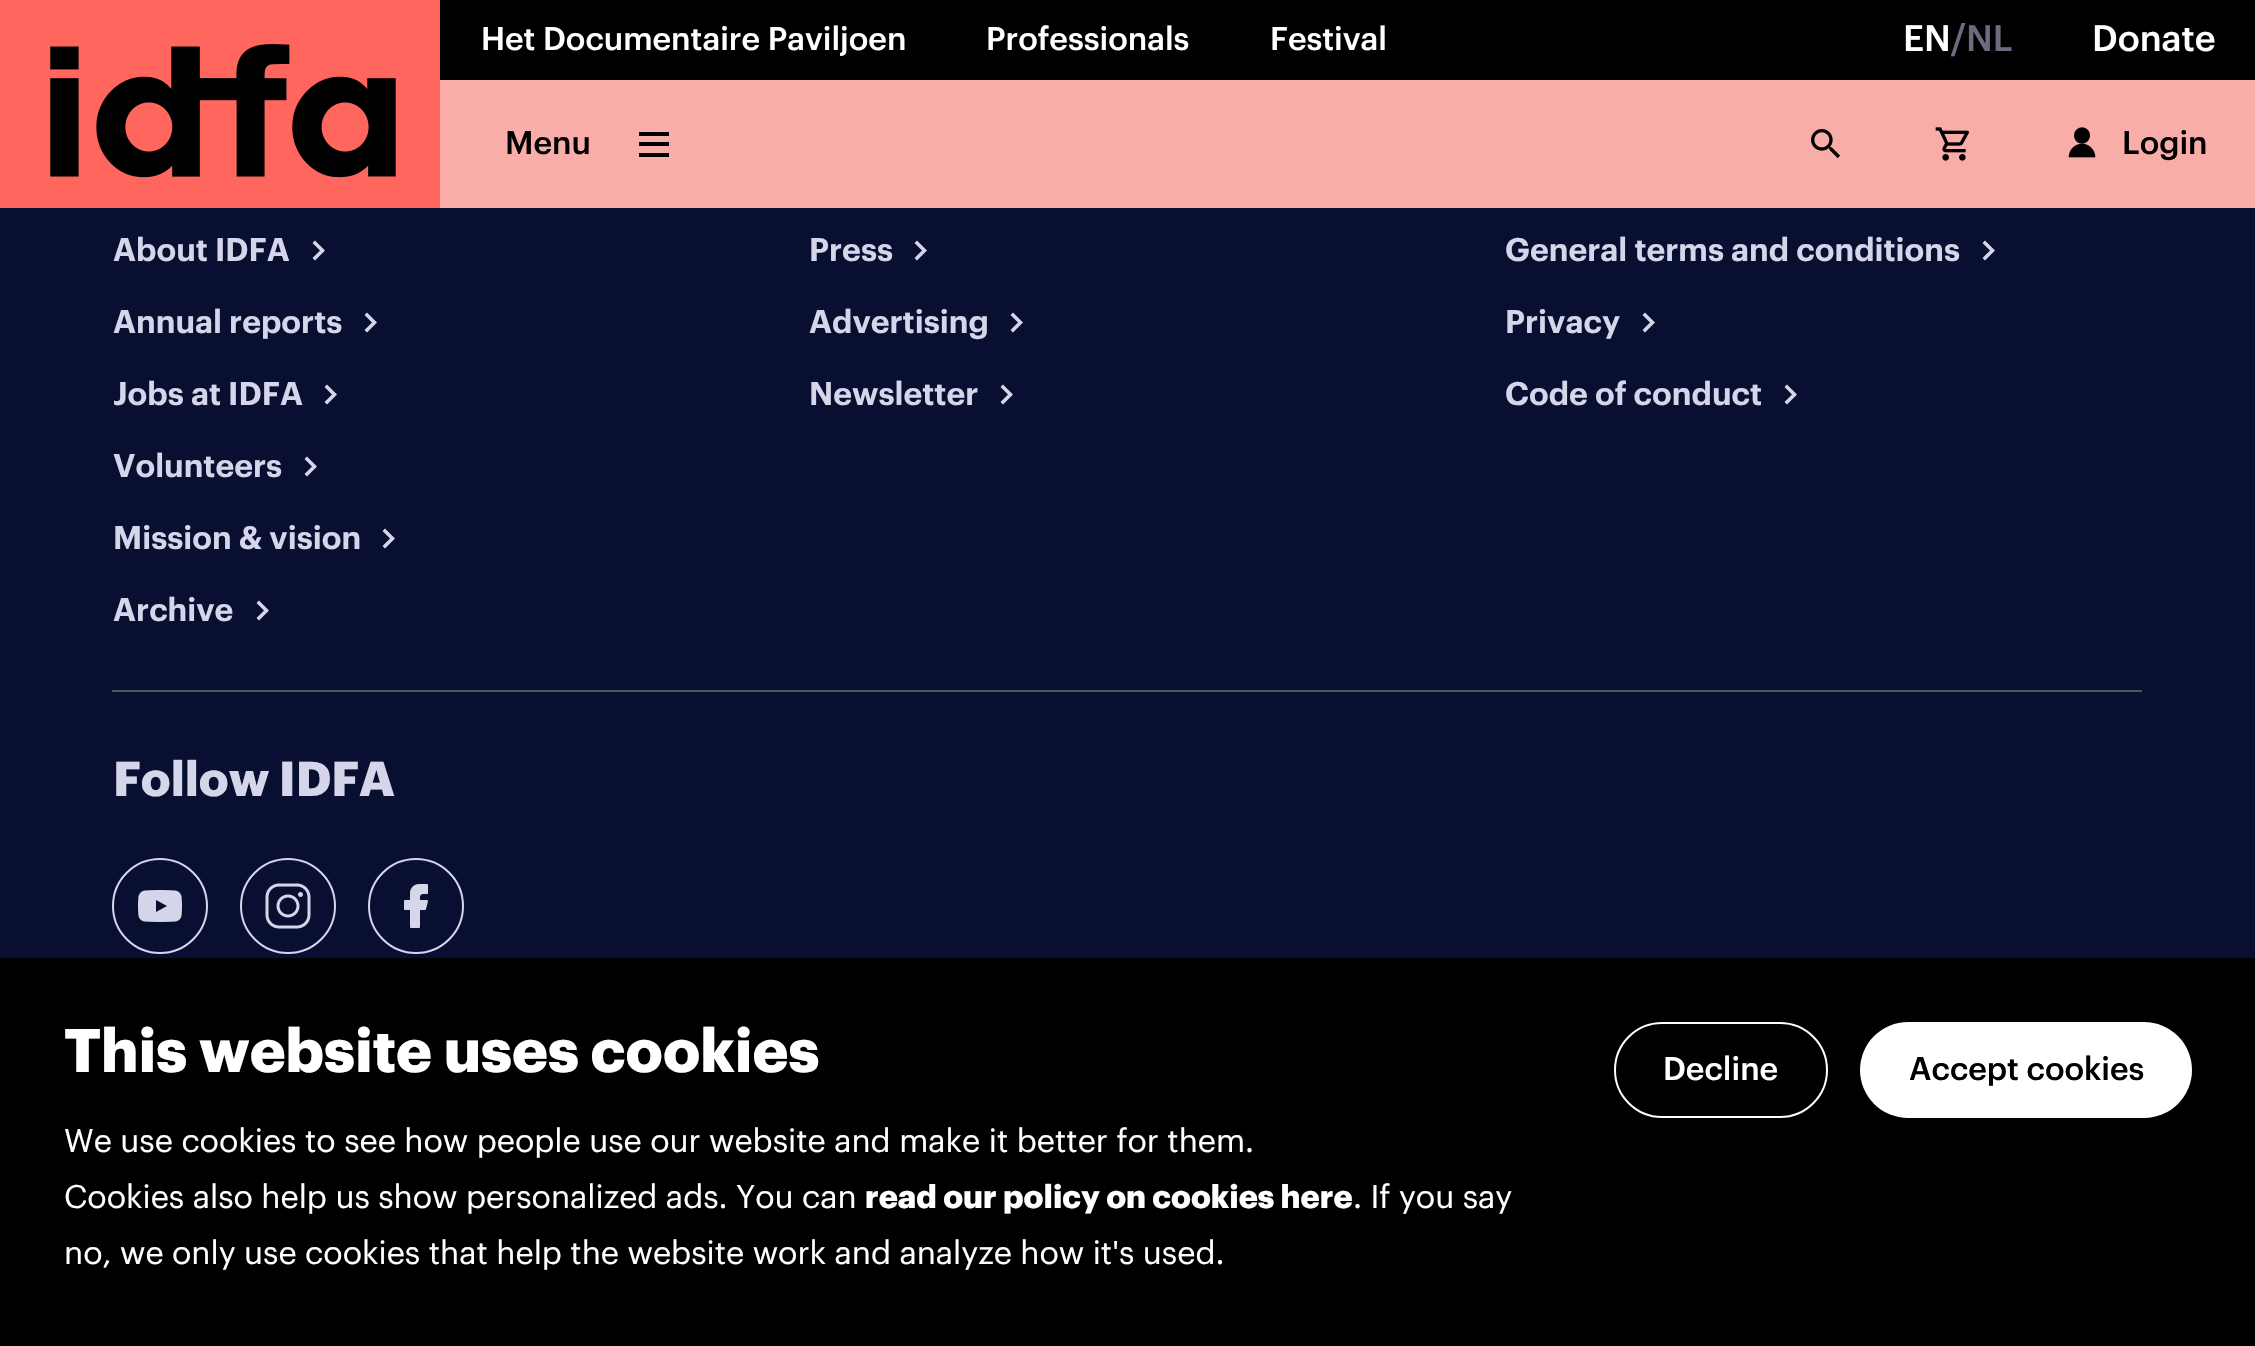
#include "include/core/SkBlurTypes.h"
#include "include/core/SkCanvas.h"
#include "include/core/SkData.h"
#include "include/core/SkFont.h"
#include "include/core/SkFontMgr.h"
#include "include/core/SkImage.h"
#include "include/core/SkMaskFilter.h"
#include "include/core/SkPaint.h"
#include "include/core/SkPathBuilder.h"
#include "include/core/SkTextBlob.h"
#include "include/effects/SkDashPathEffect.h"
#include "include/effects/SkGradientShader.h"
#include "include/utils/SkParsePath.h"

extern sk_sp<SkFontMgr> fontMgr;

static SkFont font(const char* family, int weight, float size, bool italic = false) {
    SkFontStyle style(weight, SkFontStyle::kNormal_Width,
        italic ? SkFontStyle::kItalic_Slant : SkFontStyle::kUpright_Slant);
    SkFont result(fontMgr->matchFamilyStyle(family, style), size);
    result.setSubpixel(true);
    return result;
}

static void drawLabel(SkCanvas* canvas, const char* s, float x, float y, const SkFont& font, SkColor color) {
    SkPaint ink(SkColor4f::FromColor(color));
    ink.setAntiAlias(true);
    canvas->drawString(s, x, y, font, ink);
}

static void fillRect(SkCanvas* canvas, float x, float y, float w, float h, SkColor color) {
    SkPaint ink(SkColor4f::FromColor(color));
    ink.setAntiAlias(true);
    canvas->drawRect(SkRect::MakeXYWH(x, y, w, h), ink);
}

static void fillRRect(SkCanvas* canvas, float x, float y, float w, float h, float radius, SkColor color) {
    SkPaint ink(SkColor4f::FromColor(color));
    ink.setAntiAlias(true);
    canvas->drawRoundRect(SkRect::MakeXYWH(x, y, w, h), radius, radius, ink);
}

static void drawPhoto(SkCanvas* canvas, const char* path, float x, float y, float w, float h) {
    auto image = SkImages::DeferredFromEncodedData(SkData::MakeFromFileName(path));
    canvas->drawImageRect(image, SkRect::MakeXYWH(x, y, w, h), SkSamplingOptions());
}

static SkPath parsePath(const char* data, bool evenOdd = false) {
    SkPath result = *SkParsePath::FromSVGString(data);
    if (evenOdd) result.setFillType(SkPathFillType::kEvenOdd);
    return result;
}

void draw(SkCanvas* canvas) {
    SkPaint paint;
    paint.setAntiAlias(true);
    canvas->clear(0xFF080F30);
    fillRect(canvas, 0, 0, 440, 208, 0xFFFF665E);
    drawPhoto(canvas, "assets/img1.png", 50, 44, 346, 134);
    fillRect(canvas, 440, 0, 1815, 80, 0xFF000000);
    SkFont font1 = font("Graphik", 500, 32);
    drawLabel(canvas, "Het Documentaire Paviljoen", 481, 50, font1, 0xFFFFFFFF);
    drawLabel(canvas, "Professionals", 986, 50, font1, 0xFFFFFFFF);
    drawLabel(canvas, "Festival", 1270, 50, font1, 0xFFFFFFFF);
    SkFont font2 = font("Graphik", 500, 36);
    drawLabel(canvas, "EN", 1903, 51, font2, 0xFFFFFFFF);
    drawLabel(canvas, "/NL", 1951, 51, font2, 0xFF6D6B82);
    drawLabel(canvas, "Donate", 2092, 51, font2, 0xFFFFFFFF);
    fillRect(canvas, 440, 80, 1815, 128, 0xFFF9ADA9);
    drawLabel(canvas, "Menu", 505, 154, font1, 0xFF000000);
    fillRect(canvas, 639, 132, 30, 4, 0xFF000000);
    fillRect(canvas, 639, 142, 30, 4, 0xFF000000);
    fillRect(canvas, 639, 153, 30, 4, 0xFF000000);
    drawPhoto(canvas, "assets/img2.png", 1811, 129, 30, 30);
    drawPhoto(canvas, "assets/img3.png", 1935, 127, 34, 34);
    drawPhoto(canvas, "assets/img4.png", 2068, 127, 28, 31);
    drawLabel(canvas, "Login", 2122, 154, font1, 0xFF000000);
    SkFont font3 = font("Graphik", 600, 32);
    drawLabel(canvas, "About IDFA", 113, 261, font3, 0xFFD6D6EA);
    paint.setColor(0xFFD6D6EA);
    canvas->drawPath(parsePath("M312.5 258L320 250.5L312.5 243L315 240.5L325 250.5L315 260.5Z"), paint);
    drawLabel(canvas, "Annual reports", 113, 333, font3, 0xFFD6D6EA);
    canvas->drawPath(parsePath("M364.5 330L372 322.5L364.5 315L367 312.5L377 322.5L367 332.5Z"), paint);
    drawLabel(canvas, "Jobs at IDFA", 113, 405, font3, 0xFFD6D6EA);
    canvas->drawPath(parsePath("M324.5 402L332 394.5L324.5 387L327 384.5L337 394.5L327 404.5Z"), paint);
    drawLabel(canvas, "Volunteers", 113, 477, font3, 0xFFD6D6EA);
    canvas->drawPath(parsePath("M304.5 474L312 466.5L304.5 459L307 456.5L317 466.5L307 476.5Z"), paint);
    drawLabel(canvas, "Mission & vision", 113, 549, font3, 0xFFD6D6EA);
    canvas->drawPath(parsePath("M382.5 546L390 538.5L382.5 531L385 528.5L395 538.5L385 548.5Z"), paint);
    drawLabel(canvas, "Archive", 113, 621, font3, 0xFFD6D6EA);
    canvas->drawPath(parsePath("M256.5 618L264 610.5L256.5 603L259 600.5L269 610.5L259 620.5Z"), paint);
    drawLabel(canvas, "Press", 809, 261, font3, 0xFFD6D6EA);
    canvas->drawPath(parsePath("M914.5 258L922 250.5L914.5 243L917 240.5L927 250.5L917 260.5Z"), paint);
    drawLabel(canvas, "Advertising", 809, 333, font3, 0xFFD6D6EA);
    canvas->drawPath(parsePath("M1010.5 330L1018 322.5L1010.5 315L1013 312.5L1023 322.5L1013 332.5Z"), paint);
    drawLabel(canvas, "Newsletter", 809, 405, font3, 0xFFD6D6EA);
    canvas->drawPath(parsePath("M1000.5 402L1008 394.5L1000.5 387L1003 384.5L1013 394.5L1003 404.5Z"), paint);
    drawLabel(canvas, "General terms and conditions", 1505, 261, font3, 0xFFD6D6EA);
    canvas->drawPath(parsePath("M1982.5 258L1990 250.5L1982.5 243L1985 240.5L1995 250.5L1985 260.5Z"), paint);
    drawLabel(canvas, "Privacy", 1505, 333, font3, 0xFFD6D6EA);
    canvas->drawPath(parsePath("M1642.5 330L1650 322.5L1642.5 315L1645 312.5L1655 322.5L1645 332.5Z"), paint);
    drawLabel(canvas, "Code of conduct", 1505, 405, font3, 0xFFD6D6EA);
    canvas->drawPath(parsePath("M1784.5 402L1792 394.5L1784.5 387L1787 384.5L1797 394.5L1787 404.5Z"), paint);
    fillRect(canvas, 112, 690, 2030, 2, 0xFF505360);
    SkFont font4 = font("Graphik", 700, 48);
    drawLabel(canvas, "Follow IDFA", 113, 796, font4, 0xFFD6D6EA);
    paint.setStroke(true);
    paint.setStrokeWidth(2);
    canvas->drawCircle(160, 906, 47, paint);
    drawPhoto(canvas, "assets/img5.png", 138, 890, 44, 32);
    canvas->drawCircle(288, 906, 47, paint);
    drawPhoto(canvas, "assets/img6.png", 265, 883, 46, 46);
    canvas->drawCircle(416, 906, 47, paint);
    drawPhoto(canvas, "assets/img7.png", 404, 884, 24, 44);
    fillRect(canvas, 0, 958, 2255, 388, 0xFF000000);
    SkFont font5 = font("Graphik", 700, 60);
    drawLabel(canvas, "This website uses cookies", 64, 1072, font5, 0xFFFFFFFF);
    SkFont font6 = font("Graphik", 400, 32);
    drawLabel(canvas, "We use cookies to see how people use our website and make it better for them.", 64, 1152, font6, 0xFFFFFFFF);
    drawLabel(canvas, "Cookies also help us show personalized ads. You can", 64, 1208, font6, 0xFFFFFFFF);
    SkFont font7 = font("Graphik", 700, 32);
    drawLabel(canvas, "read our policy on cookies here", 865, 1208, font7, 0xFFFFFFFF);
    drawLabel(canvas, ". If you say", 1353, 1208, font6, 0xFFFFFFFF);
    drawLabel(canvas, "no, we only use cookies that help the website work and analyze how it's used.", 64, 1264, font6, 0xFFFFFFFF);
    paint.setColor(0xFFFFFFFF);
    canvas->drawRoundRect(SkRect::MakeXYWH(1615, 1023, 212, 94), 47, 47, paint);
    drawLabel(canvas, "Decline", 1663, 1080, font1, 0xFFFFFFFF);
    fillRRect(canvas, 1860, 1022, 332, 96, 48, 0xFFFFFFFF);
    drawLabel(canvas, "Accept cookies", 1909, 1080, font1, 0xFF000000);
}
